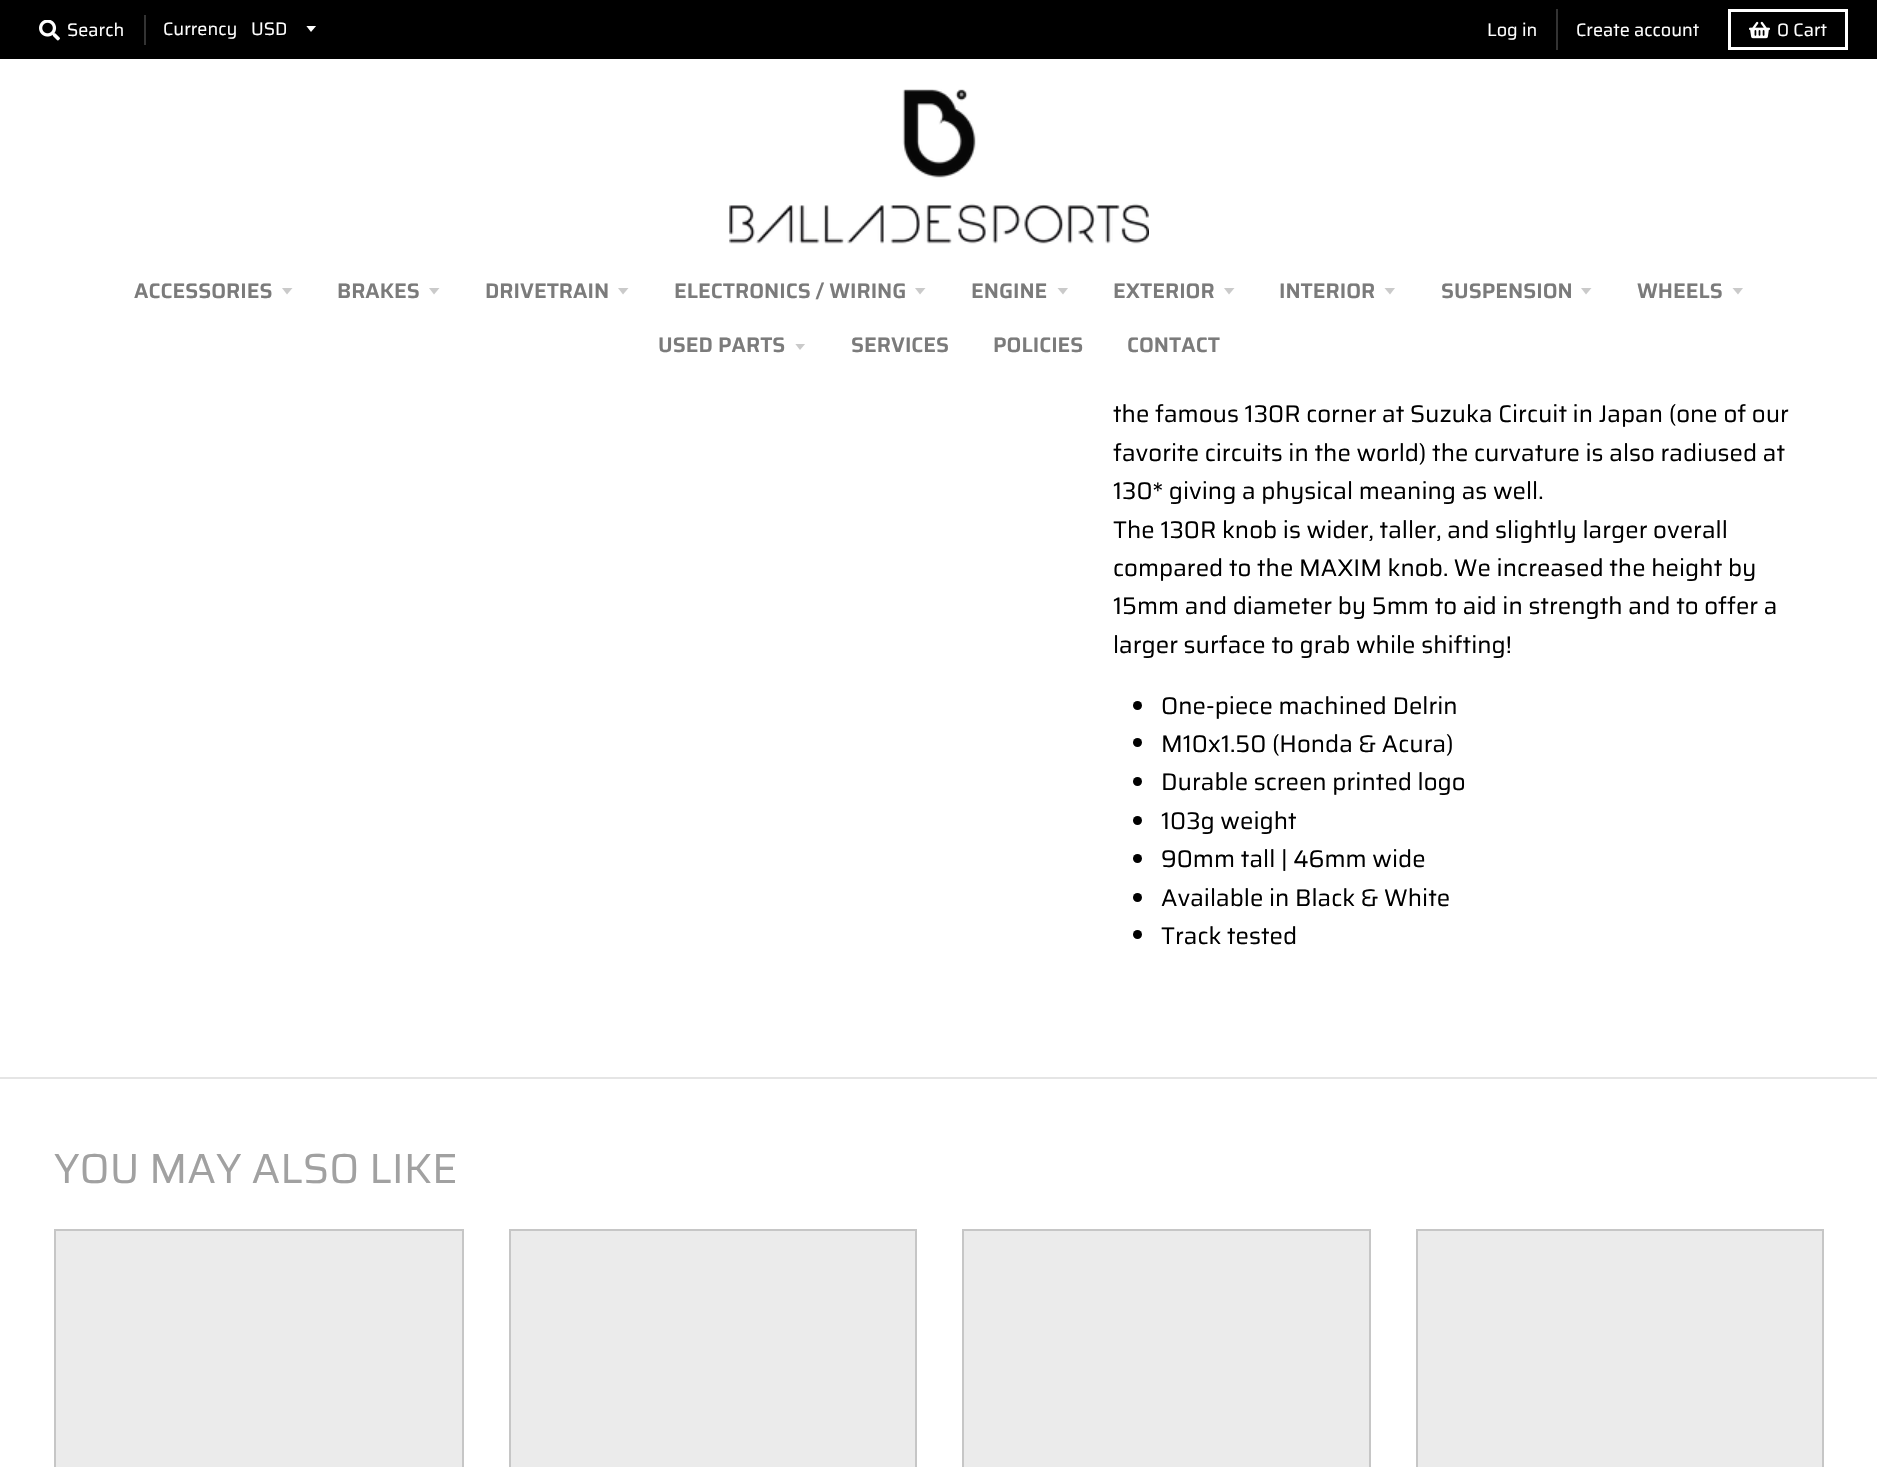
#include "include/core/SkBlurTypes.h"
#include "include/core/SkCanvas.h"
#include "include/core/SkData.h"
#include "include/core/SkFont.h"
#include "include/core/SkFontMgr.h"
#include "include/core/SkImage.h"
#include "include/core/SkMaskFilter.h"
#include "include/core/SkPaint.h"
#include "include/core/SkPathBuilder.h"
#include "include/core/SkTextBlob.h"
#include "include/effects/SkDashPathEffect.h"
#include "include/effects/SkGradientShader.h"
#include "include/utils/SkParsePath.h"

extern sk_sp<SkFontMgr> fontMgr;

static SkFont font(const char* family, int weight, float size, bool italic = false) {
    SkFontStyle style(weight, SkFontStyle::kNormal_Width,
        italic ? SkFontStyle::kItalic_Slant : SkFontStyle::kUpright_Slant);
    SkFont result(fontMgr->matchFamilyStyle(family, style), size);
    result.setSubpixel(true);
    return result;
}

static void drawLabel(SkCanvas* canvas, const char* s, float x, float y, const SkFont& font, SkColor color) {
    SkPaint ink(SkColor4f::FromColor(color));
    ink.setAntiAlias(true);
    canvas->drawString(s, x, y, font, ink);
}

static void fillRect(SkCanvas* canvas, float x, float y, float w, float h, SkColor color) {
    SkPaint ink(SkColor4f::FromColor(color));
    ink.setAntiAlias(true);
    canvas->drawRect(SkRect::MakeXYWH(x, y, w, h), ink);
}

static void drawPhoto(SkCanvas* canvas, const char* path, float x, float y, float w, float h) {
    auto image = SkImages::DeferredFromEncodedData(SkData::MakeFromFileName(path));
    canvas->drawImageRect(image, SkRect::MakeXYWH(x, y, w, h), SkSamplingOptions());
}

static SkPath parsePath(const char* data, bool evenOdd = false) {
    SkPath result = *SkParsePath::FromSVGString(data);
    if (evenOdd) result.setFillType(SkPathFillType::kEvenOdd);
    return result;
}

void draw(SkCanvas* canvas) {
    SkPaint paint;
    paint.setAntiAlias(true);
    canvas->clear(0xFFFFFFFF);
    fillRect(canvas, 0, 0, 1877, 59, 0xFF000000);
    drawPhoto(canvas, "assets/img1.png", 39, 20, 21, 21);
    SkFont font1 = font("Saira", 400, 18);
    drawLabel(canvas, "Search", 67, 36, font1, 0xFFFFFFFF);
    fillRect(canvas, 144, 15, 2, 30, 0xFF333333);
    drawLabel(canvas, "Currency", 163, 35, font1, 0xFFFFFFFF);
    canvas->save();
    canvas->clipRect(SkRect::MakeXYWH(306, 26, 12, 7));
    paint.setColor(0xFFFFFFFF);
    canvas->drawPath(parsePath("M306 25.5L311 32L316.5 25.5Z"), paint);
    canvas->restore();
    drawLabel(canvas, "USD", 251, 35, font1, 0xFFFFFFFF);
    fillRect(canvas, 1556, 9, 2, 41, 0xFF333333);
    drawLabel(canvas, "Log in", 1487, 36, font1, 0xFFFFFFFF);
    drawLabel(canvas, "Create account", 1576, 36, font1, 0xFFFFFFFF);
    paint.setStroke(true);
    paint.setStrokeWidth(3);
    canvas->drawRect(SkRect::MakeXYWH(1729.5f, 10.5f, 117, 38), paint);
    drawPhoto(canvas, "assets/img2.png", 1749, 21, 21, 18);
    drawLabel(canvas, "0 Cart", 1777, 36, font1, 0xFFFFFFFF);
    drawPhoto(canvas, "assets/img3.png", 729, 89, 420, 155);
    SkFont font2 = font("Saira", 600, 21);
    drawLabel(canvas, "ACCESSORIES", 134, 298, font2, 0xFF7B7B7B);
    paint.setStroke(false);
    paint.setColor(0xFFCACACA);
    canvas->drawPath(parsePath("M282 288L287 294.5L292.5 288Z"), paint);
    drawLabel(canvas, "BRAKES", 337, 298, font2, 0xFF7B7B7B);
    canvas->drawPath(parsePath("M429 288L434 294.5L439.5 288Z"), paint);
    drawLabel(canvas, "DRIVETRAIN", 485, 298, font2, 0xFF7B7B7B);
    canvas->drawPath(parsePath("M618 288L623 294.5L628.5 288Z"), paint);
    drawLabel(canvas, "ELECTRONICS / WIRING", 674, 298, font2, 0xFF7B7B7B);
    canvas->drawPath(parsePath("M915 288L920 294.5L925.5 288Z"), paint);
    drawLabel(canvas, "ENGINE", 971, 298, font2, 0xFF7B7B7B);
    canvas->drawPath(parsePath("M1057.5 288L1063 294.5L1068 288Z"), paint);
    drawLabel(canvas, "EXTERIOR", 1113, 298, font2, 0xFF7B7B7B);
    canvas->drawPath(parsePath("M1224 288L1229 294.5L1234.5 288Z"), paint);
    drawLabel(canvas, "INTERIOR", 1279, 298, font2, 0xFF7B7B7B);
    canvas->drawPath(parsePath("M1384.5 288L1390 294.5L1395 288Z"), paint);
    drawLabel(canvas, "SUSPENSION", 1441, 298, font2, 0xFF7B7B7B);
    canvas->drawPath(parsePath("M1581 288L1586 294.5L1591.5 288Z"), paint);
    drawLabel(canvas, "WHEELS", 1637, 298, font2, 0xFF7B7B7B);
    canvas->drawPath(parsePath("M1732.5 288L1738 294.5L1743 288Z"), paint);
    drawLabel(canvas, "USED PARTS", 658, 352, font2, 0xFF7B7B7B);
    canvas->save();
    canvas->clipRect(SkRect::MakeXYWH(795, 344, 12, 7));
    canvas->drawPath(parsePath("M795 343.5L800 350L805.5 343.5Z"), paint);
    canvas->restore();
    drawLabel(canvas, "SERVICES", 851, 352, font2, 0xFF7B7B7B);
    drawLabel(canvas, "POLICIES", 993, 352, font2, 0xFF7B7B7B);
    drawLabel(canvas, "CONTACT", 1127, 352, font2, 0xFF7B7B7B);
    fillRect(canvas, 0, 1077, 1877, 2, 0xFFE5E5E5);
    SkFont font3 = font("Saira", 400, 24);
    drawLabel(canvas, "the famous 130R corner at Suzuka Circuit in Japan (one of our", 1113, 422, font3, 0xFF000000);
    drawLabel(canvas, "favorite circuits in the world) the curvature is also radiused at", 1113, 461, font3, 0xFF000000);
    drawLabel(canvas, "130* giving a physical meaning as well.", 1113, 499, font3, 0xFF000000);
    drawLabel(canvas, "The 130R knob is wider, taller, and slightly larger overall", 1113, 538, font3, 0xFF000000);
    drawLabel(canvas, "compared to the MAXIM knob. We increased the height by", 1113, 576, font3, 0xFF000000);
    drawLabel(canvas, "15mm and diameter by 5mm to aid in strength and to offer a", 1113, 614, font3, 0xFF000000);
    drawLabel(canvas, "larger surface to grab while shifting!", 1113, 653, font3, 0xFF000000);
    paint.setColor(0xFF000000);
    canvas->drawCircle(1137.5f, 705.5f, 4.5f, paint);
    drawLabel(canvas, "One-piece machined Delrin", 1161, 714, font3, 0xFF000000);
    canvas->drawCircle(1137.5f, 742.5f, 4.5f, paint);
    drawLabel(canvas, "M10x1.50 (Honda & Acura)", 1161, 752, font3, 0xFF000000);
    canvas->drawCircle(1137.5f, 781.5f, 4.5f, paint);
    drawLabel(canvas, "Durable screen printed logo", 1161, 790, font3, 0xFF000000);
    canvas->drawCircle(1137.5f, 820.5f, 4.5f, paint);
    drawLabel(canvas, "103g weight", 1161, 829, font3, 0xFF000000);
    canvas->drawCircle(1137.5f, 858.5f, 4.5f, paint);
    drawLabel(canvas, "90mm tall | 46mm wide", 1161, 867, font3, 0xFF000000);
    canvas->drawCircle(1137.5f, 897.5f, 4.5f, paint);
    drawLabel(canvas, "Available in Black & White", 1161, 906, font3, 0xFF000000);
    canvas->drawCircle(1137.5f, 934.5f, 4.5f, paint);
    drawLabel(canvas, "Track tested", 1161, 944, font3, 0xFF000000);
    SkFont font4 = font("Saira", 400, 42);
    drawLabel(canvas, "YOU MAY ALSO LIKE", 54, 1183, font4, 0xFFA1A1A1);
    paint.setColor(0xFFEBEBEB);
    canvas->drawRect(SkRect::MakeXYWH(55, 1230, 408, 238), paint);
    paint.setStroke(true);
    paint.setStrokeWidth(2);
    paint.setColor(0xFFC6C6C6);
    canvas->drawRect(SkRect::MakeXYWH(55, 1230, 408, 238), paint);
    paint.setStroke(false);
    paint.setColor(0xFFEBEBEB);
    canvas->drawRect(SkRect::MakeXYWH(510, 1230, 406, 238), paint);
    paint.setStroke(true);
    paint.setColor(0xFFC6C6C6);
    canvas->drawRect(SkRect::MakeXYWH(510, 1230, 406, 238), paint);
    paint.setStroke(false);
    paint.setColor(0xFFEBEBEB);
    canvas->drawRect(SkRect::MakeXYWH(963, 1230, 407, 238), paint);
    paint.setStroke(true);
    paint.setColor(0xFFC6C6C6);
    canvas->drawRect(SkRect::MakeXYWH(963, 1230, 407, 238), paint);
    paint.setStroke(false);
    paint.setColor(0xFFEBEBEB);
    canvas->drawRect(SkRect::MakeXYWH(1417, 1230, 406, 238), paint);
    paint.setStroke(true);
    paint.setColor(0xFFC6C6C6);
    canvas->drawRect(SkRect::MakeXYWH(1417, 1230, 406, 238), paint);
}
